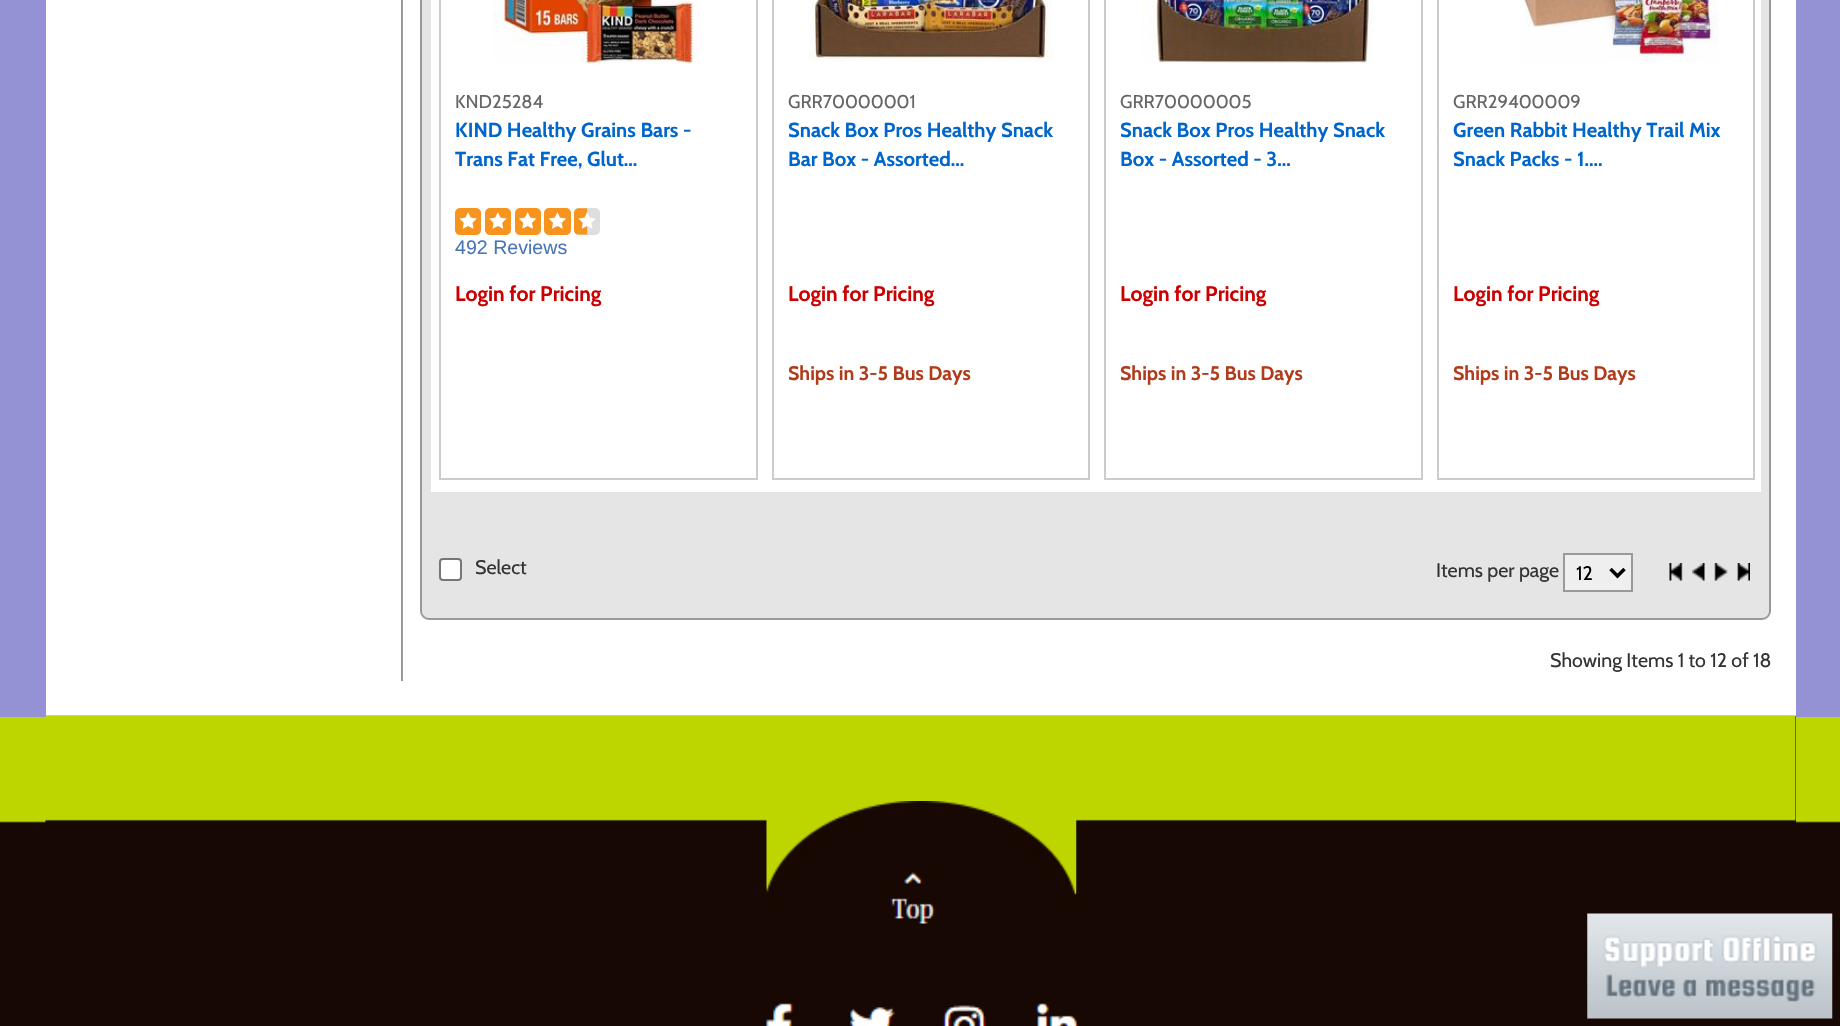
#include "include/core/SkBlurTypes.h"
#include "include/core/SkCanvas.h"
#include "include/core/SkData.h"
#include "include/core/SkFont.h"
#include "include/core/SkFontMgr.h"
#include "include/core/SkImage.h"
#include "include/core/SkMaskFilter.h"
#include "include/core/SkPaint.h"
#include "include/core/SkPathBuilder.h"
#include "include/core/SkTextBlob.h"
#include "include/effects/SkDashPathEffect.h"
#include "include/effects/SkGradientShader.h"
#include "include/utils/SkParsePath.h"

extern sk_sp<SkFontMgr> fontMgr;

static SkFont font(const char* family, int weight, float size, bool italic = false) {
    SkFontStyle style(weight, SkFontStyle::kNormal_Width,
        italic ? SkFontStyle::kItalic_Slant : SkFontStyle::kUpright_Slant);
    SkFont result(fontMgr->matchFamilyStyle(family, style), size);
    result.setSubpixel(true);
    return result;
}

static void drawLabel(SkCanvas* canvas, const char* s, float x, float y, const SkFont& font, SkColor color) {
    SkPaint ink(SkColor4f::FromColor(color));
    ink.setAntiAlias(true);
    canvas->drawString(s, x, y, font, ink);
}

static void fillRect(SkCanvas* canvas, float x, float y, float w, float h, SkColor color) {
    SkPaint ink(SkColor4f::FromColor(color));
    ink.setAntiAlias(true);
    canvas->drawRect(SkRect::MakeXYWH(x, y, w, h), ink);
}

static void drawPhoto(SkCanvas* canvas, const char* path, float x, float y, float w, float h) {
    auto image = SkImages::DeferredFromEncodedData(SkData::MakeFromFileName(path));
    canvas->drawImageRect(image, SkRect::MakeXYWH(x, y, w, h), SkSamplingOptions());
}

static SkPath parsePath(const char* data, bool evenOdd = false) {
    SkPath result = *SkParsePath::FromSVGString(data);
    if (evenOdd) result.setFillType(SkPathFillType::kEvenOdd);
    return result;
}

void draw(SkCanvas* canvas) {
    SkPaint paint;
    paint.setAntiAlias(true);
    canvas->clear(0xFF9491D4);
    drawPhoto(canvas, "assets/img1.png", 0, 717, 1840, 309);
    fillRect(canvas, 46, 0, 1750, 716, 0xFFFFFFFF);
    fillRect(canvas, 401, 0, 2, 681, 0xFF999999);
    paint.setColor(0xFFE5E5E5);
    canvas->drawRoundRect(SkRect::MakeXYWH(421, -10, 1349, 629), 8, 8, paint);
    paint.setStroke(true);
    paint.setStrokeWidth(2);
    paint.setColor(0xFF999999);
    canvas->drawRoundRect(SkRect::MakeXYWH(421, -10, 1349, 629), 8, 8, paint);
    fillRect(canvas, 431, 0, 1330, 492, 0xFFFFFFFF);
    paint.setColor(0xFFCCCCCC);
    canvas->drawRect(SkRect::MakeXYWH(440, -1, 317, 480), paint);
    drawPhoto(canvas, "assets/img2.png", 493, 0, 207, 63);
    SkFont font1 = font("Cabin", 400, 18.5f);
    drawLabel(canvas, "KND25284", 455, 108, font1, 0xFF666666);
    SkFont font2 = font("Cabin", 700, 20.25f);
    drawLabel(canvas, "KIND Healthy Grains Bars -", 455, 137, font2, 0xFF0066CC);
    drawLabel(canvas, "Trans Fat Free, Glut...", 455, 166, font2, 0xFF0066CC);
    drawPhoto(canvas, "assets/img3.png", 455, 208, 26, 27);
    drawPhoto(canvas, "assets/img4.png", 485, 208, 26, 27);
    drawPhoto(canvas, "assets/img5.png", 515, 208, 26, 27);
    drawPhoto(canvas, "assets/img6.png", 544, 208, 27, 27);
    drawPhoto(canvas, "assets/img7.png", 574, 208, 26, 27);
    SkFont font3 = font("Liberation Sans", 400, 19.6f);
    drawLabel(canvas, "492 Reviews", 455, 254, font3, 0xFF4876B6);
    SkFont font4 = font("Cabin", 700, 21);
    drawLabel(canvas, "Login for Pricing", 455, 301, font4, 0xFFCC0000);
    canvas->drawRect(SkRect::MakeXYWH(773, -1, 316, 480), paint);
    drawPhoto(canvas, "assets/img8.png", 808, 0, 245, 62);
    drawLabel(canvas, "GRR70000001", 788, 108, font1, 0xFF666666);
    drawLabel(canvas, "Snack Box Pros Healthy Snack", 788, 137, font2, 0xFF0066CC);
    drawLabel(canvas, "Bar Box - Assorted...", 788, 166, font2, 0xFF0066CC);
    drawLabel(canvas, "Login for Pricing", 788, 301, font4, 0xFFCC0000);
    SkFont font5 = font("Cabin", 700, 19.6f);
    drawLabel(canvas, "Ships in 3-5 Bus Days", 788, 380, font5, 0xFFB13B1B);
    canvas->drawRect(SkRect::MakeXYWH(1105, -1, 317, 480), paint);
    drawPhoto(canvas, "assets/img9.png", 1141, 0, 234, 63);
    drawLabel(canvas, "GRR70000005", 1120, 108, font1, 0xFF666666);
    drawLabel(canvas, "Snack Box Pros Healthy Snack", 1120, 137, font2, 0xFF0066CC);
    drawLabel(canvas, "Box - Assorted - 3...", 1120, 166, font2, 0xFF0066CC);
    drawLabel(canvas, "Login for Pricing", 1120, 301, font4, 0xFFCC0000);
    drawLabel(canvas, "Ships in 3-5 Bus Days", 1120, 380, font5, 0xFFB13B1B);
    canvas->drawRect(SkRect::MakeXYWH(1438, -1, 316, 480), paint);
    drawPhoto(canvas, "assets/img10.png", 1519, 0, 200, 62);
    drawLabel(canvas, "GRR29400009", 1453, 108, font1, 0xFF666666);
    drawLabel(canvas, "Green Rabbit Healthy Trail Mix", 1453, 137, font2, 0xFF0066CC);
    drawLabel(canvas, "Snack Packs - 1....", 1453, 166, font2, 0xFF0066CC);
    drawLabel(canvas, "Login for Pricing", 1453, 301, font4, 0xFFCC0000);
    drawLabel(canvas, "Ships in 3-5 Bus Days", 1453, 380, font5, 0xFFB13B1B);
    paint.setStroke(false);
    paint.setColor(0xFFFFFFFF);
    canvas->drawRoundRect(SkRect::MakeXYWH(440, 559, 21, 21), 3, 3, paint);
    paint.setStroke(true);
    paint.setColor(0xFF767676);
    canvas->drawRoundRect(SkRect::MakeXYWH(440, 559, 21, 21), 3, 3, paint);
    SkFont font6 = font("Cabin", 400, 19.6f);
    drawLabel(canvas, "Select", 475, 574, font6, 0xFF333333);
    drawLabel(canvas, "Items per page", 1436, 577, font6, 0xFF333333);
    paint.setStroke(false);
    paint.setColor(0xFFEFEFEF);
    canvas->drawRect(SkRect::MakeXYWH(1564, 554, 68, 37), paint);
    paint.setStroke(true);
    paint.setColor(0xFF999999);
    canvas->drawRect(SkRect::MakeXYWH(1564, 554, 68, 37), paint);
    paint.setStrokeWidth(3.5f);
    paint.setColor(0xFF000000);
    canvas->drawPath(parsePath("M1610.5 569L1617.5 576L1624.5 569"), paint);
    drawLabel(canvas, "12", 1576, 580, font6, 0xFF000000);
    drawPhoto(canvas, "assets/img11.png", 1669, 563, 14, 18);
    drawPhoto(canvas, "assets/img12.png", 1692, 563, 13, 18);
    drawPhoto(canvas, "assets/img13.png", 1714, 563, 14, 18);
    drawPhoto(canvas, "assets/img14.png", 1737, 563, 13, 18);
    drawLabel(canvas, "Showing Items 1 to 12 of 18", 1550, 667, font6, 0xFF333333);
    fillRect(canvas, 46, 716, 1750, 107, 0xFF170803);
    drawPhoto(canvas, "assets/img15.png", 45, 715, 1751, 108);
    drawPhoto(canvas, "assets/img16.png", 766, 801, 311, 123);
    drawPhoto(canvas, "assets/img17.png", 766, 1003, 28, 23);
    drawPhoto(canvas, "assets/img18.png", 850, 1007, 45, 19);
    drawPhoto(canvas, "assets/img19.png", 942, 1005, 44, 21);
    drawPhoto(canvas, "assets/img20.png", 1035, 1003, 44, 23);
    drawPhoto(canvas, "assets/img21.png", 1587, 913, 246, 106);
}
